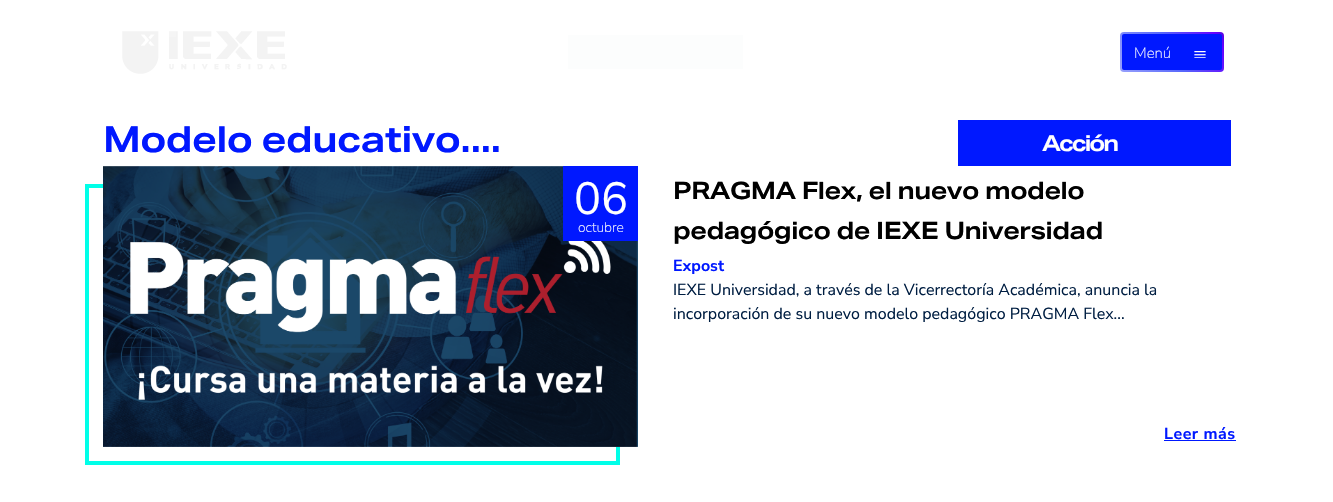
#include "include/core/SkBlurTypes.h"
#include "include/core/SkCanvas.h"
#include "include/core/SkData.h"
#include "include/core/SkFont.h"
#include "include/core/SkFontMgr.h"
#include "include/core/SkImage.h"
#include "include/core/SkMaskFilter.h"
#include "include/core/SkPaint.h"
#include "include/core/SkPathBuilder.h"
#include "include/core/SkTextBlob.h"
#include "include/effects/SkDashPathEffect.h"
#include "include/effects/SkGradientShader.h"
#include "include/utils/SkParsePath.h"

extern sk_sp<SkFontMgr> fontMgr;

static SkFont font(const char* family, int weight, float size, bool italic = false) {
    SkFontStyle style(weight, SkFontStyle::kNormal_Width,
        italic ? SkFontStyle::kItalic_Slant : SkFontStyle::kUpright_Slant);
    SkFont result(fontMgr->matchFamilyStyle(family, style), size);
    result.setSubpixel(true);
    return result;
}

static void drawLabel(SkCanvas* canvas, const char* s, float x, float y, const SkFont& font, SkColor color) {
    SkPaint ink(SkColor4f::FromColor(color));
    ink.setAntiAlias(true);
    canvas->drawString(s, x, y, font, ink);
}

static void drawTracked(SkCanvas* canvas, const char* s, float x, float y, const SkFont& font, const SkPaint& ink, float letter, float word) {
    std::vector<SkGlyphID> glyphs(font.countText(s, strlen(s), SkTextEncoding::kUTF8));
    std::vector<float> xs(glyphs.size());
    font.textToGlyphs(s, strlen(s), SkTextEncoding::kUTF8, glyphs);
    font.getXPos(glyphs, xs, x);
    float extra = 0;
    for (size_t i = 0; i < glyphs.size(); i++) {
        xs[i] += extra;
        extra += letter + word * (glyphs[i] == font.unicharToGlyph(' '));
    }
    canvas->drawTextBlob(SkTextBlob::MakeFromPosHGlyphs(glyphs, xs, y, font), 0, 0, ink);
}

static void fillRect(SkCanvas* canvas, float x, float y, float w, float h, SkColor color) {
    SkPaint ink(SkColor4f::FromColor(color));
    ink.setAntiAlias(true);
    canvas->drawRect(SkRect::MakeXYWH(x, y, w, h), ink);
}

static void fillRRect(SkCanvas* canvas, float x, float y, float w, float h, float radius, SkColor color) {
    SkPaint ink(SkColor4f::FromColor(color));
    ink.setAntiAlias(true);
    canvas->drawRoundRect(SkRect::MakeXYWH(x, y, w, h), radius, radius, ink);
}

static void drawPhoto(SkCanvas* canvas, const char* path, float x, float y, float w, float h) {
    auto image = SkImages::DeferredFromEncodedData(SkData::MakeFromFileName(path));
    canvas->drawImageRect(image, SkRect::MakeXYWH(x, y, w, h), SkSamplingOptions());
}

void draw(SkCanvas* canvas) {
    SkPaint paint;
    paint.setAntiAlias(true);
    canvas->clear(0xFFFFFFFF);
    drawPhoto(canvas, "assets/img1.png", 122, 31, 165, 43);
    fillRect(canvas, 568, 35, 175, 34, 0xFFFCFDFD);
    {
        const SkColor colors[] = {0xFFBEC4FD, 0xFF919BFC, 0xFF5666FC, 0xFF6600FF, 0xFF001E42, 0xFF0018FF, 0xFF00A2FF, 0xFF00FFE8};
        const float stops[] = {0, 0.14f, 0.29f, 0.43f, 0.57f, 0.71f, 0.86f, 1};
        const SkPoint ends[] = {{1133, 175}, {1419, 9}};
        paint.setShader(SkGradientShader::MakeLinear(ends, colors, stops, 8, SkTileMode::kClamp));
        paint.setAlpha(255);
    }
    canvas->drawRoundRect(SkRect::MakeXYWH(1120, 32, 104, 40), 4, 4, paint);
    fillRRect(canvas, 1122, 34, 100, 36, 2, 0xFF0018FF);
    SkFont font1 = font("Nunito Sans", 200, 15);
    drawLabel(canvas, "Menú", 1134, 58, font1, 0xFFFFFFFF);
    drawPhoto(canvas, "assets/img2.png", 1194, 51, 12, 7);
    SkFont font2 = font("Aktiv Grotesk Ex", 700, 36);
    paint.setShader(nullptr);
    paint.setColor(0xFF0018FF);
    drawTracked(canvas, "Modelo educativo....", 103, 152, font2, paint, -0.55f, 0);
    fillRect(canvas, 958, 120, 273, 46, 0xFF0018FF);
    SkFont font3 = font("Aktiv Grotesk Ex", 700, 22);
    paint.setColor(0xFFFFFFFF);
    drawTracked(canvas, "Acción", 1042, 151, font3, paint, -2, 0);
    paint.setStroke(true);
    paint.setStrokeWidth(4);
    paint.setColor(0xFF00FFE8);
    canvas->drawRect(SkRect::MakeXYWH(87, 186, 531, 277), paint);
    drawPhoto(canvas, "assets/img3.png", 103, 166, 535, 281);
    fillRect(canvas, 563, 166, 75, 75, 0xFF0018FF);
    SkFont font4 = font("Nunito Sans", 400, 45);
    drawLabel(canvas, "06", 574, 214, font4, 0xFFFFFFFF);
    SkFont font5 = font("Nunito Sans", 200, 14);
    drawLabel(canvas, "octubre", 578, 232, font5, 0xFFFFFFFF);
    SkFont font6 = font("Aktiv Grotesk Ex", 700, 24);
    paint.setStroke(false);
    paint.setColor(0xFF000000);
    drawTracked(canvas, "PRAGMA Flex, el nuevo modelo", 673, 199, font6, paint, -0.5f, 0);
    drawTracked(canvas, "pedagógico de IEXE Universidad", 673, 239, font6, paint, -0.5f, 0);
    SkFont font7 = font("Nunito Sans", 700, 16);
    drawLabel(canvas, "Expost", 673, 271, font7, 0xFF0018FF);
    SkFont font8 = font("Nunito Sans", 400, 16);
    drawLabel(canvas, "IEXE Universidad, a través de la Vicerrectoría Académica, anuncia la", 673, 295, font8, 0xFF001E42);
    drawLabel(canvas, "incorporación de su nuevo modelo pedagógico PRAGMA Flex...", 673, 319, font8, 0xFF001E42);
    paint.setColor(0xFF0018FF);
    drawTracked(canvas, "Leer más", 1164, 439, font7, paint, 0.5f, 0);
    fillRect(canvas, 1164, 440, 72, 1, 0xFF0018FF);
}
